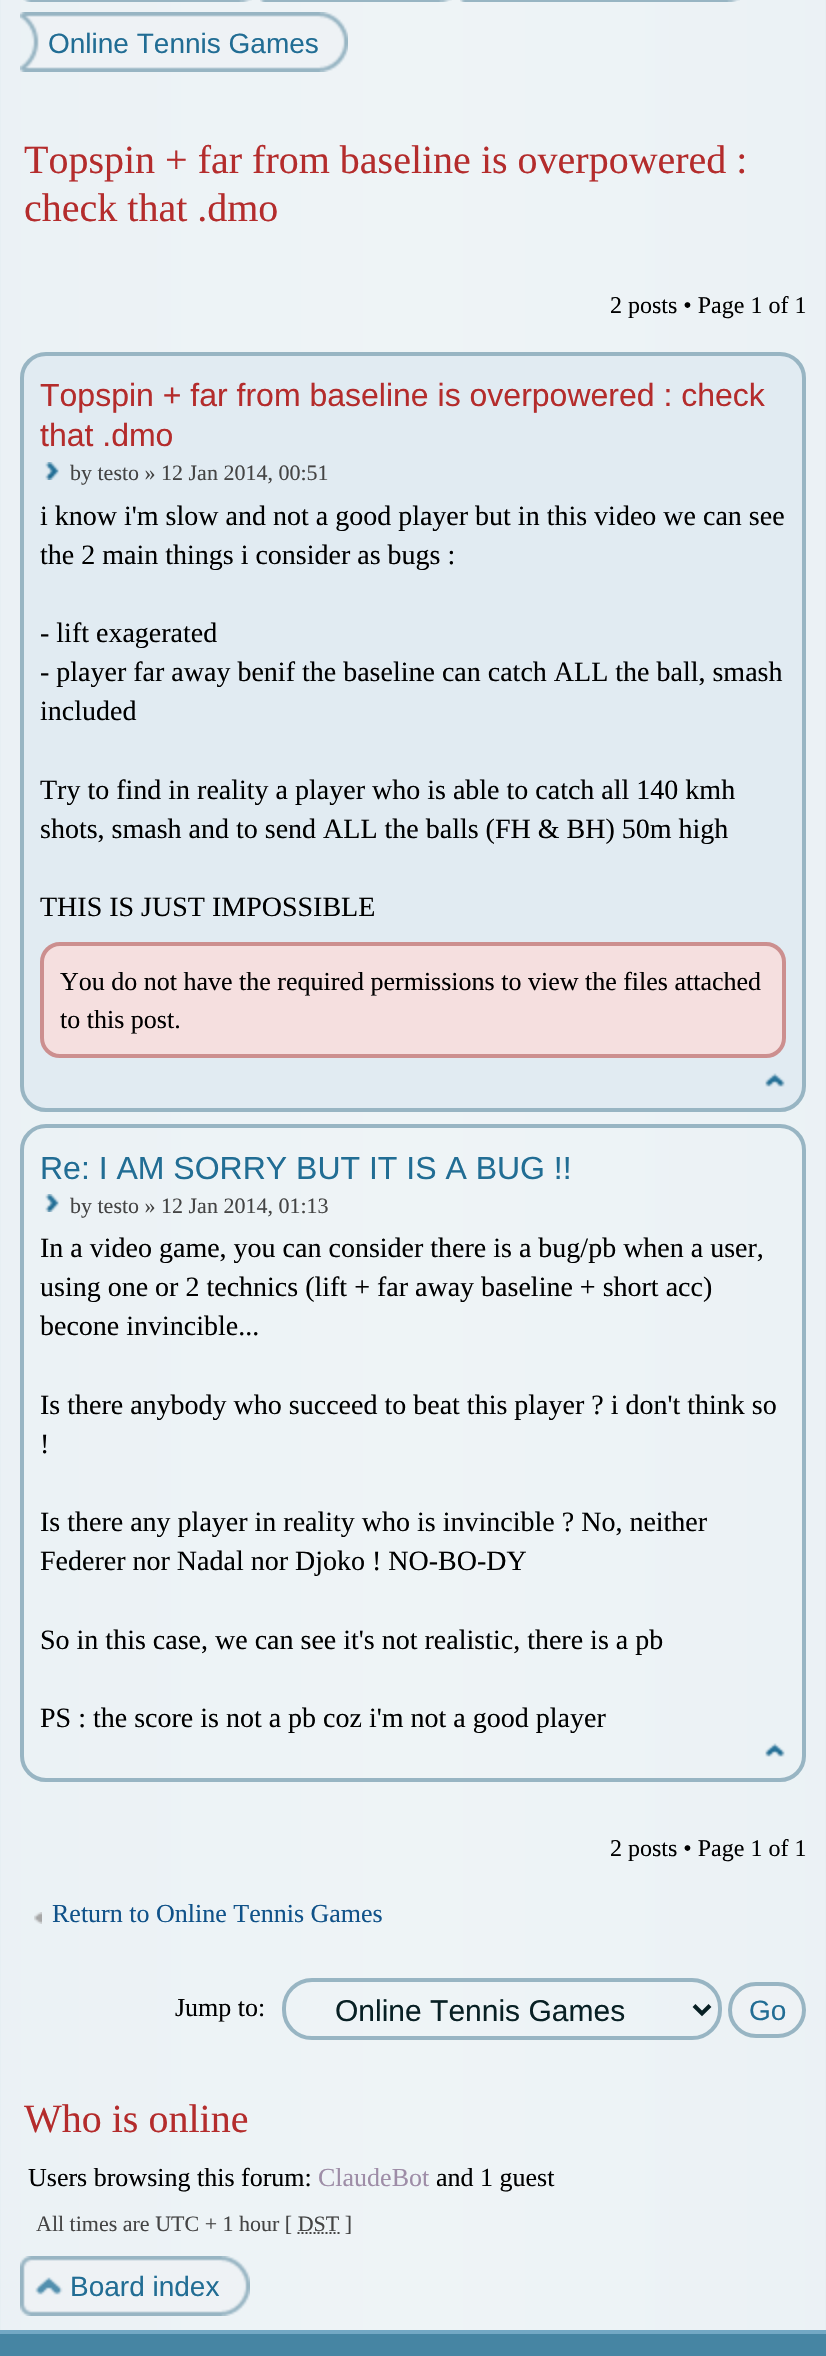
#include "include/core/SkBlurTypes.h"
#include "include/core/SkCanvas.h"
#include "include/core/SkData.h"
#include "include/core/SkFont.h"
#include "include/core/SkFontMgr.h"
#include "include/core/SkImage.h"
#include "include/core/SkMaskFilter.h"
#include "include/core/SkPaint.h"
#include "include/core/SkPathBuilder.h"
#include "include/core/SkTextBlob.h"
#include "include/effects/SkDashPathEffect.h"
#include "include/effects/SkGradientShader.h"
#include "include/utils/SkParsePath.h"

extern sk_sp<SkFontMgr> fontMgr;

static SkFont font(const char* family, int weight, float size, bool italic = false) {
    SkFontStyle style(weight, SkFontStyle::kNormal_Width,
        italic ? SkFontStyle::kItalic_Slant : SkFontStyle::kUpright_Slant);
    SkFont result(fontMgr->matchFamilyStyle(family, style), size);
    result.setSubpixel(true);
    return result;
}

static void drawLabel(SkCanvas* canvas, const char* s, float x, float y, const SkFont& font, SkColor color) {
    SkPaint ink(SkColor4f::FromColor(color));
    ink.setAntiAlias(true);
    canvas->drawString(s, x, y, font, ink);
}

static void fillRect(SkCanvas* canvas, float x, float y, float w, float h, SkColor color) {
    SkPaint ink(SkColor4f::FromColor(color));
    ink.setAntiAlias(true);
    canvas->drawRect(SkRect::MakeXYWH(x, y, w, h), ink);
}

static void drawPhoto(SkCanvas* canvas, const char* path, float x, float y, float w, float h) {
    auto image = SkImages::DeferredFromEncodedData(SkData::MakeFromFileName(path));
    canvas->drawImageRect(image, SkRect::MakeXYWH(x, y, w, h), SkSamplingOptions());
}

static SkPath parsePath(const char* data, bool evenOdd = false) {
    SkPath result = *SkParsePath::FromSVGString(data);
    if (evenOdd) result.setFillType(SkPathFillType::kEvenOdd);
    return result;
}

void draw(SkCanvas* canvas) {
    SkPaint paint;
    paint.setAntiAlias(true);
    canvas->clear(0xFFE7EFF3);
    drawPhoto(canvas, "assets/img1.png", 1, 0, 824, 2330);
    drawPhoto(canvas, "assets/img2.png", 40, 0, 212, 2);
    drawPhoto(canvas, "assets/img3.png", 23, 0, 17, 2);
    drawPhoto(canvas, "assets/img4.png", 280, 0, 172, 2);
    drawPhoto(canvas, "assets/img5.png", 260, 0, 20, 2);
    drawPhoto(canvas, "assets/img6.png", 480, 0, 260, 2);
    drawPhoto(canvas, "assets/img7.png", 460, 0, 20, 2);
    drawPhoto(canvas, "assets/img8.png", 40, 12, 308, 60);
    drawPhoto(canvas, "assets/img9.png", 20, 12, 20, 60);
    SkFont font1 = font("Liberation Sans", 400, 28);
    drawLabel(canvas, "Online Tennis Games", 48, 53, font1, 0xFF216D94);
    SkFont font2 = font("Liberation Serif", 400, 40);
    drawLabel(canvas, "Topspin + far from baseline is overpowered :", 24, 173, font2, 0xFFB42C2C);
    drawLabel(canvas, "check that .dmo", 24, 221, font2, 0xFFB42C2C);
    SkFont font3 = font("Liberation Serif", 400, 24);
    drawLabel(canvas, "2 posts • Page 1 of 1", 610, 313, font3, 0xFF000000);
    paint.setColor(0xFFE1EBF2);
    canvas->drawRoundRect(SkRect::MakeXYWH(22, 354, 782, 756), 24, 24, paint);
    paint.setStroke(true);
    paint.setStrokeWidth(4);
    paint.setColor(0xFF98B5C3);
    canvas->drawRoundRect(SkRect::MakeXYWH(22, 354, 782, 756), 24, 24, paint);
    SkFont font4 = font("Liberation Sans", 400, 32);
    drawLabel(canvas, "Topspin + far from baseline is overpowered : check", 40, 406, font4, 0xFFB42C2C);
    drawLabel(canvas, "that .dmo", 40, 446, font4, 0xFFB42C2C);
    drawPhoto(canvas, "assets/img10.png", 45, 462, 14, 18);
    SkFont font5 = font("Liberation Serif", 400, 22);
    drawLabel(canvas, "by testo » 12 Jan 2014, 00:51", 70, 480, font5, 0xFF444444);
    SkFont font6 = font("Liberation Serif", 400, 28);
    drawLabel(canvas, "i know i'm slow and not a good player but in this video we can see", 40, 525, font6, 0xFF000000);
    drawLabel(canvas, "the 2 main things i consider as bugs :", 40, 564, font6, 0xFF000000);
    drawLabel(canvas, "- lift exagerated", 40, 642, font6, 0xFF000000);
    drawLabel(canvas, "- player far away benif the baseline can catch ALL the ball, smash", 40, 681, font6, 0xFF000000);
    drawLabel(canvas, "included", 40, 720, font6, 0xFF000000);
    drawLabel(canvas, "Try to find in reality a player who is able to catch all 140 kmh", 40, 799, font6, 0xFF000000);
    drawLabel(canvas, "shots, smash and to send ALL the balls (FH & BH) 50m high", 40, 838, font6, 0xFF000000);
    drawLabel(canvas, "THIS IS JUST IMPOSSIBLE", 40, 916, font6, 0xFF000000);
    paint.setStroke(false);
    paint.setColor(0xFFF5DFDF);
    canvas->drawRoundRect(SkRect::MakeXYWH(42, 944, 742, 112), 18, 18, paint);
    paint.setStroke(true);
    paint.setColor(0xFFCC8F8F);
    canvas->drawRoundRect(SkRect::MakeXYWH(42, 944, 742, 112), 18, 18, paint);
    SkFont font7 = font("Liberation Serif", 400, 26);
    drawLabel(canvas, "You do not have the required permissions to view the files attached", 60, 990, font7, 0xFF000000);
    drawLabel(canvas, "to this post.", 60, 1028, font7, 0xFF000000);
    drawPhoto(canvas, "assets/img11.png", 765, 1073, 20, 14);
    paint.setColor(0xFF98B5C3);
    canvas->drawRoundRect(SkRect::MakeXYWH(22, 1126, 782, 654), 24, 24, paint);
    drawLabel(canvas, "Re: I AM SORRY BUT IT IS A BUG !!", 40, 1179, font4, 0xFF216D94);
    drawPhoto(canvas, "assets/img12.png", 45, 1194, 14, 18);
    drawLabel(canvas, "by testo » 12 Jan 2014, 01:13", 70, 1213, font5, 0xFF444444);
    drawLabel(canvas, "In a video game, you can consider there is a bug/pb when a user,", 40, 1257, font6, 0xFF000000);
    drawLabel(canvas, "using one or 2 technics (lift + far away baseline + short acc)", 40, 1296, font6, 0xFF000000);
    drawLabel(canvas, "becone invincible...", 40, 1335, font6, 0xFF000000);
    drawLabel(canvas, "Is there anybody who succeed to beat this player ? i don't think so", 40, 1414, font6, 0xFF000000);
    drawLabel(canvas, "!", 40, 1453, font6, 0xFF000000);
    drawLabel(canvas, "Is there any player in reality who is invincible ? No, neither", 40, 1531, font6, 0xFF000000);
    drawLabel(canvas, "Federer nor Nadal nor Djoko ! NO-BO-DY", 40, 1570, font6, 0xFF000000);
    drawLabel(canvas, "So in this case, we can see it's not realistic, there is a pb", 40, 1649, font6, 0xFF000000);
    drawLabel(canvas, "PS : the score is not a pb coz i'm not a good player", 40, 1727, font6, 0xFF000000);
    drawPhoto(canvas, "assets/img13.png", 765, 1743, 20, 14);
    drawLabel(canvas, "2 posts • Page 1 of 1", 610, 1856, font3, 0xFF000000);
    drawPhoto(canvas, "assets/img14.png", 34, 1912, 8, 12);
    drawLabel(canvas, "Return to Online Tennis Games", 52, 1922, font7, 0xFF105289);
    drawLabel(canvas, "Jump to:", 175, 2016, font7, 0xFF000000);
    canvas->drawRoundRect(SkRect::MakeXYWH(284, 1980, 436, 58), 28, 28, paint);
    paint.setColor(0xFF082024);
    canvas->drawPath(parsePath("M694 2005.5L702 2013.5L710 2005.5"), paint);
    SkFont font8 = font("Liberation Sans", 400, 30);
    drawLabel(canvas, "Online Tennis Games", 335, 2021, font8, 0xFF082024);
    paint.setStroke(false);
    paint.setColor(0xFFEEF2F5);
    canvas->drawRoundRect(SkRect::MakeXYWH(730, 1984, 74, 52), 26, 26, paint);
    paint.setStroke(true);
    paint.setColor(0xFF98B5C3);
    canvas->drawRoundRect(SkRect::MakeXYWH(730, 1984, 74, 52), 26, 26, paint);
    drawLabel(canvas, "Go", 749, 2020, font1, 0xFF216D94);
    drawLabel(canvas, "Who is online", 24, 2132, font2, 0xFFB42C2C);
    drawLabel(canvas, "Users browsing this forum:", 28, 2186, font7, 0xFF000000);
    drawLabel(canvas, "ClaudeBot", 318, 2186, font7, 0xFF9E8DA7);
    drawLabel(canvas, "and 1 guest", 436, 2186, font7, 0xFF000000);
    drawLabel(canvas, "All times are UTC + 1 hour [ DST ]", 36, 2231, font5, 0xFF444444);
    paint.setStrokeWidth(2);
    paint.setColor(0xFF444444);
    paint.setPathEffect(SkDashPathEffect::Make({{2, 2}}, 0));
    canvas->drawPath(parsePath("M297.5 2233H339.5"), paint);
    paint.setPathEffect(nullptr);
    drawPhoto(canvas, "assets/img15.png", 63, 2256, 187, 60);
    drawPhoto(canvas, "assets/img16.png", 20, 2256, 43, 60);
    drawLabel(canvas, "Board index", 70, 2296, font1, 0xFF216D94);
    fillRect(canvas, 0, 2334, 826, 22, 0xFF4685A3);
    fillRect(canvas, 0, 2330, 826, 4, 0xFF73A8C4);
}
